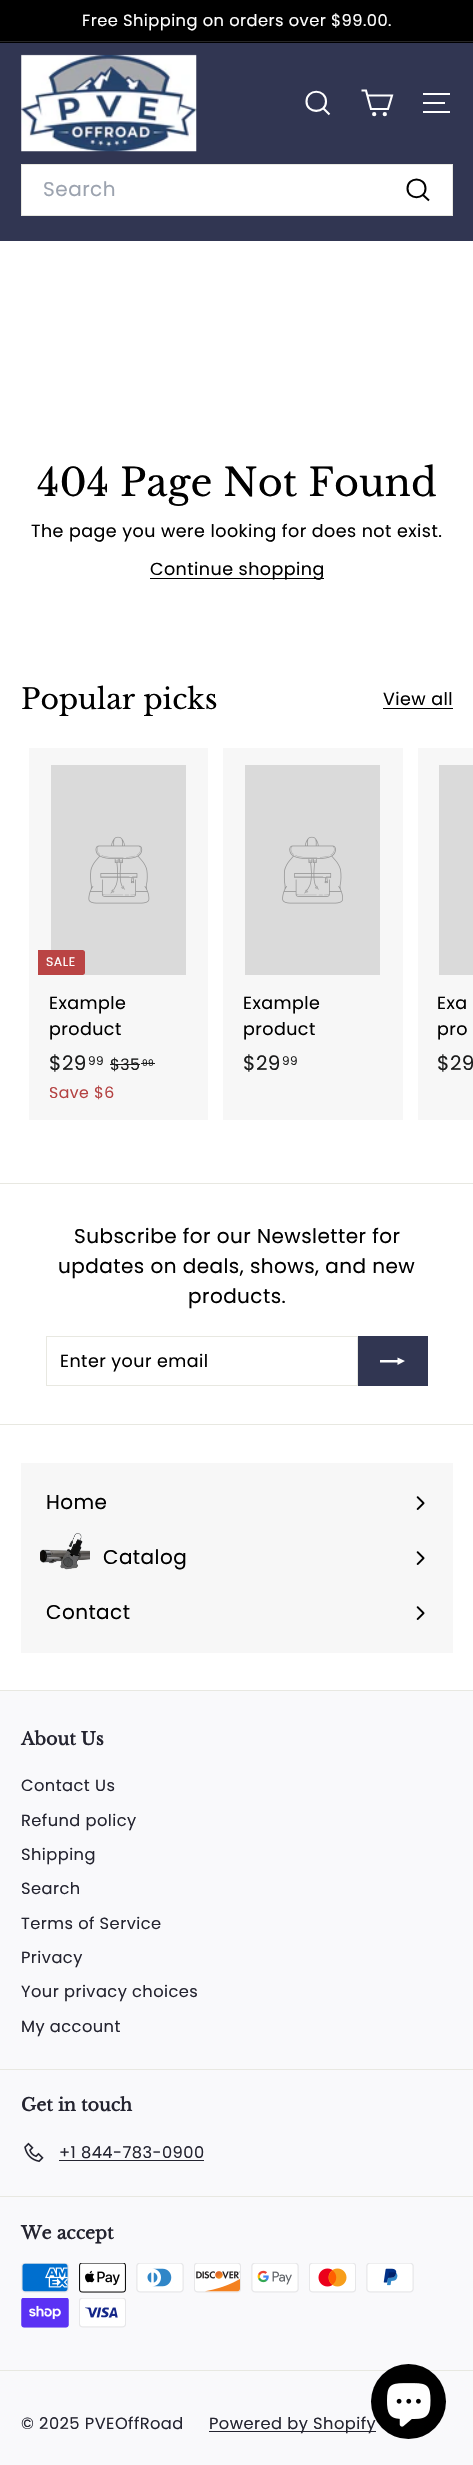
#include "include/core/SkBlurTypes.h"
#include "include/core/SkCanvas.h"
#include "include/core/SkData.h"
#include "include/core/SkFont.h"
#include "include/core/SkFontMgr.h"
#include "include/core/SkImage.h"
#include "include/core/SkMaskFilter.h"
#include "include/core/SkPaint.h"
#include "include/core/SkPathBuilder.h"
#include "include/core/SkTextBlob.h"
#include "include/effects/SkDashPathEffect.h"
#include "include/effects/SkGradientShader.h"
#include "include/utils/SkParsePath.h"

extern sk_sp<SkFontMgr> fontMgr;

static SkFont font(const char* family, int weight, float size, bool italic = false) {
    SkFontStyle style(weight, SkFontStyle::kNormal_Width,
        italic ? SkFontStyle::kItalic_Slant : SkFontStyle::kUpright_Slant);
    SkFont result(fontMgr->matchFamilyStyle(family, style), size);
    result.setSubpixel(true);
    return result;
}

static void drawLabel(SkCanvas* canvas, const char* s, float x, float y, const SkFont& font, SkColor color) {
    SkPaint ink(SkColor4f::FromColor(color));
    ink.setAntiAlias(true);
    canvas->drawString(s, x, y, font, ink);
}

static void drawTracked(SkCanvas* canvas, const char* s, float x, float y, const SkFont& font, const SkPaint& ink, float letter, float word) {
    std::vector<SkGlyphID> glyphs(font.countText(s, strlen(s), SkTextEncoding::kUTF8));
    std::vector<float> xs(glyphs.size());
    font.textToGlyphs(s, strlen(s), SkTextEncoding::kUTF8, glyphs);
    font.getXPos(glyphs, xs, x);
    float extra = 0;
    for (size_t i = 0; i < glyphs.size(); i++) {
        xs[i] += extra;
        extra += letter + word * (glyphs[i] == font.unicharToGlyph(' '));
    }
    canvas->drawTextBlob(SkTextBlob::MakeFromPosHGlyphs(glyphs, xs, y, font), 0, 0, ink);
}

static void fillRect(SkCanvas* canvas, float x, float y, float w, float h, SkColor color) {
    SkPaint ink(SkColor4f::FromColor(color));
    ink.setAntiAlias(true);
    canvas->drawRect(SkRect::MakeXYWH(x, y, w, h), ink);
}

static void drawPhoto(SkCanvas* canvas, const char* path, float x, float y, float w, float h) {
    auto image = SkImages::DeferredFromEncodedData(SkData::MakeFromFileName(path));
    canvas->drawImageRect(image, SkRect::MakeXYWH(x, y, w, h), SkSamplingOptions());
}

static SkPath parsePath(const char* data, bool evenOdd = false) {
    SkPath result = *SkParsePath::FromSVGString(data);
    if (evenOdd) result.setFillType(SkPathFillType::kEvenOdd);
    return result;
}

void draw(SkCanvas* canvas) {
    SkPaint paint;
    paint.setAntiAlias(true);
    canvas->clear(0xFFFFFFFF);
    fillRect(canvas, 21, 1463, 432, 190, 0xFFF7F7F7);
    fillRect(canvas, 418, 748, 55, 372, 0xFFF7F7F7);
    fillRect(canvas, 223, 748, 180, 372, 0xFFF7F7F7);
    fillRect(canvas, 29, 748, 179, 372, 0xFFF7F7F7);
    fillRect(canvas, 0, 0, 473, 43, 0xFF000000);
    SkFont font1 = font("Poppins", 400, 16.25f);
    paint.setColor(0xFFFFFFFF);
    drawTracked(canvas, "Free Shipping on orders over $99.00.", 82, 26, font1, paint, 0.45f, 0);
    fillRect(canvas, 0, 41, 473, 1, 0xFF262626);
    fillRect(canvas, 0, 43, 473, 198, 0xFF313652);
    drawPhoto(canvas, "assets/img1.png", 21, 54, 176, 98);
    paint.setStroke(true);
    paint.setStrokeWidth(2.1f);
    canvas->drawPath(parsePath("M326 101.5C326 114 306.5 114 306.5 101.5C306.5 88.5 326 88.5 326 101.5M329.5 114.5L323.5 108.5"), paint);
    canvas->drawPath(parsePath("M367.5 95.5H392L388 109H371L366 90.5H361.5"), paint);
    canvas->drawCircle(374.2f, 114.2f, 1.1f, paint);
    canvas->drawCircle(384.8f, 114.2f, 1.1f, paint);
    fillRect(canvas, 423, 93, 27, 2, 0xFFFFFFFF);
    fillRect(canvas, 423, 102, 22, 2, 0xFFFFFFFF);
    fillRect(canvas, 423, 111, 27, 2, 0xFFFFFFFF);
    paint.setStroke(false);
    canvas->drawRect(SkRect::MakeXYWH(21.5f, 164.5f, 431, 51), paint);
    paint.setStroke(true);
    paint.setStrokeWidth(1);
    paint.setColor(0xFFE8E8E1);
    canvas->drawRect(SkRect::MakeXYWH(21.5f, 164.5f, 431, 51), paint);
    SkFont font2 = font("Poppins", 400, 20);
    paint.setStroke(false);
    paint.setColor(0xFF9CA3AF);
    drawTracked(canvas, "Search", 43, 196, font2, paint, 0.5f, 0);
    paint.setStroke(true);
    paint.setStrokeWidth(2);
    paint.setColor(0xFF000000);
    canvas->drawPath(parsePath("M425.5 188.5C425.5 200 407.5 200 407.5 188.5C407.5 176.5 425.5 176.5 425.5 188.5M429 200.5L423 195"), paint);
    SkFont font3 = font("Libre Baskerville", 400, 38.25f);
    drawLabel(canvas, "404 Page Not Found", 37, 496, font3, 0xFF000000);
    SkFont font4 = font("Poppins", 400, 17.5f);
    paint.setStroke(false);
    drawTracked(canvas, "The page you were looking for does not exist.", 31, 537, font4, paint, 0.45f, 0);
    fillRect(canvas, 150, 578, 174, 1, 0xFF000000);
    drawTracked(canvas, "Continue shopping", 150, 575, font4, paint, 0.45f, 0);
    SkFont font5 = font("Libre Baskerville", 400, 28.25f);
    drawLabel(canvas, "Popular picks", 21, 709, font5, 0xFF000000);
    drawTracked(canvas, "View all", 383, 705, font4, paint, 0.45f, 0);
    fillRect(canvas, 383, 708, 70, 1, 0xFF000000);
    fillRect(canvas, 51, 765, 135, 210, 0xFFDADADA);
    drawPhoto(canvas, "assets/img2.png", 88, 836, 62, 68);
    paint.setColor(0xFFBA4444);
    canvas->drawPath(parsePath("M38 950H82.5C84 950 85 951 85 952.5V972.5C85 974 84 975 82.5 975H38Z"), paint);
    SkFont font6 = font("Poppins", 400, 12.5f);
    paint.setColor(0xFFFFFFFF);
    drawTracked(canvas, "SALE", 46, 966, font6, paint, 0.5f, 0);
    paint.setColor(0xFF000000);
    drawTracked(canvas, "Example", 49, 1009, font4, paint, 0.45f, 0);
    drawTracked(canvas, "product", 49, 1035, font4, paint, 0.45f, 0);
    paint.setColor(0xFF1B1C1C);
    drawTracked(canvas, "$29", 49, 1070, font2, paint, 0.45f, 0);
    SkFont font7 = font("Poppins", 400, 12);
    drawTracked(canvas, "99", 88, 1065, font7, paint, 0.45f, 0);
    SkFont font8 = font("Poppins", 400, 15.75f);
    drawTracked(canvas, "$35", 110, 1070, font8, paint, 0.45f, 0);
    fillRect(canvas, 110, 1064, 30, 1, 0xFF1B1C1C);
    SkFont font9 = font("Poppins", 400, 9);
    drawTracked(canvas, "99", 142, 1066, font9, paint, 0.45f, 0);
    fillRect(canvas, 141, 1063, 14, 1, 0xFF1B1C1C);
    paint.setColor(0xFFB44242);
    drawTracked(canvas, "Save $6", 49, 1098, font8, paint, 0.45f, 0);
    fillRect(canvas, 245, 765, 135, 210, 0xFFDADADA);
    drawPhoto(canvas, "assets/img3.png", 282, 836, 61, 68);
    paint.setColor(0xFF000000);
    drawTracked(canvas, "Example", 243, 1009, font4, paint, 0.45f, 0);
    drawTracked(canvas, "product", 243, 1035, font4, paint, 0.45f, 0);
    paint.setColor(0xFF1B1C1C);
    drawTracked(canvas, "$29", 243, 1070, font2, paint, 0.45f, 0);
    drawTracked(canvas, "99", 282, 1065, font7, paint, 0.45f, 0);
    fillRect(canvas, 439, 765, 34, 210, 0xFFDADADA);
    paint.setColor(0xFF000000);
    drawTracked(canvas, "Exa", 437, 1009, font4, paint, 0.45f, 0);
    drawTracked(canvas, "pro", 437, 1035, font4, paint, 0.45f, 0);
    paint.setColor(0xFF1B1C1C);
    drawTracked(canvas, "$29", 437, 1070, font2, paint, 0.45f, 0);
    fillRect(canvas, 0, 1183, 473, 1, 0xFFE8E8E1);
    paint.setColor(0xFF000000);
    drawTracked(canvas, "Subscribe for our Newsletter for", 74, 1243, font2, paint, 0.45f, 0);
    drawTracked(canvas, "updates on deals, shows, and new", 58, 1273, font2, paint, 0.45f, 0);
    drawTracked(canvas, "products.", 188, 1303, font2, paint, 0.45f, 0);
    paint.setStroke(true);
    paint.setStrokeWidth(1);
    paint.setColor(0xFFE8E8E1);
    canvas->drawRect(SkRect::MakeXYWH(46.5f, 1336.5f, 311, 49), paint);
    paint.setStroke(false);
    paint.setColor(0xFF000000);
    drawTracked(canvas, "Enter your email", 60, 1367, font4, paint, 0.45f, 0);
    fillRect(canvas, 358, 1336, 70, 50, 0xFF313652);
    paint.setColor(0xFFFFFFFF);
    canvas->drawPath(parsePath("M380 1362.5V1360H397.5V1357.5L405 1361L397.5 1365V1362.5Z"), paint);
    fillRect(canvas, 0, 1424, 473, 1, 0xFFE8E8E1);
    paint.setColor(0xFF000000);
    drawTracked(canvas, "Home", 46, 1509, font2, paint, 0.45f, 0);
    drawPhoto(canvas, "assets/img4.png", 416, 1496, 9, 14);
    drawPhoto(canvas, "assets/img5.png", 40, 1533, 50, 37);
    drawTracked(canvas, "Catalog", 103, 1564, font2, paint, 0.45f, 0);
    drawPhoto(canvas, "assets/img4.png", 416, 1551, 9, 14);
    drawTracked(canvas, "Contact", 46, 1619, font2, paint, 0.45f, 0);
    drawPhoto(canvas, "assets/img4.png", 416, 1606, 9, 14);
    fillRect(canvas, 0, 1691, 473, 774, 0xFFF9F9FB);
    fillRect(canvas, 0, 1690, 473, 1, 0xFFE8E8E1);
    SkFont font10 = font("Libre Baskerville", 700, 17.5f);
    drawLabel(canvas, "About Us", 21, 1745, font10, 0xFF242430);
    paint.setColor(0xFF242430);
    drawTracked(canvas, "Contact Us", 21, 1791, font1, paint, 0.45f, 0);
    drawTracked(canvas, "Refund policy", 21, 1826, font1, paint, 0.45f, 0);
    drawTracked(canvas, "Shipping", 21, 1860, font1, paint, 0.45f, 0);
    drawTracked(canvas, "Search", 21, 1894, font1, paint, 0.45f, 0);
    drawTracked(canvas, "Terms of Service", 21, 1929, font1, paint, 0.45f, 0);
    drawTracked(canvas, "Privacy", 21, 1963, font1, paint, 0.45f, 0);
    drawTracked(canvas, "Your privacy choices", 21, 1997, font1, paint, 0.45f, 0);
    drawTracked(canvas, "My account", 21, 2032, font1, paint, 0.45f, 0);
    fillRect(canvas, 0, 2069, 473, 1, 0xFFE8E8E1);
    drawLabel(canvas, "Get in touch", 21, 2111, font10, 0xFF242430);
    drawPhoto(canvas, "assets/img6.png", 24, 2142, 20, 21);
    drawTracked(canvas, "+1 844-783-0900", 59, 2158, font1, paint, 0.45f, 0);
    fillRect(canvas, 59, 2160, 145, 1, 0xFF242430);
    fillRect(canvas, 0, 2196, 473, 1, 0xFFE8E8E1);
    drawLabel(canvas, "We accept", 21, 2239, font10, 0xFF242430);
    drawPhoto(canvas, "assets/img7.png", 21, 2263, 48, 30);
    drawPhoto(canvas, "assets/img8.png", 79, 2263, 47, 30);
    drawPhoto(canvas, "assets/img9.png", 136, 2263, 48, 30);
    drawPhoto(canvas, "assets/img10.png", 194, 2263, 47, 30);
    drawPhoto(canvas, "assets/img11.png", 251, 2263, 48, 30);
    drawPhoto(canvas, "assets/img12.png", 309, 2263, 47, 30);
    drawPhoto(canvas, "assets/img13.png", 366, 2263, 48, 30);
    drawPhoto(canvas, "assets/img14.png", 21, 2298, 48, 30);
    drawPhoto(canvas, "assets/img15.png", 79, 2298, 47, 30);
    fillRect(canvas, 0, 2370, 473, 1, 0xFFE8E8E1);
    drawTracked(canvas, "© 2025 PVEOffRoad", 21, 2429, font1, paint, 0.45f, 0);
    fillRect(canvas, 209, 2431, 167, 1, 0xFF242430);
    drawTracked(canvas, "Powered by Shopify", 209, 2429, font1, paint, 0.45f, 0);
    paint.setColor(0xFF000000);
    canvas->drawCircle(408.5f, 2401.5f, 37.5f, paint);
    drawPhoto(canvas, "assets/img16.png", 387, 2383, 44, 44);
}
